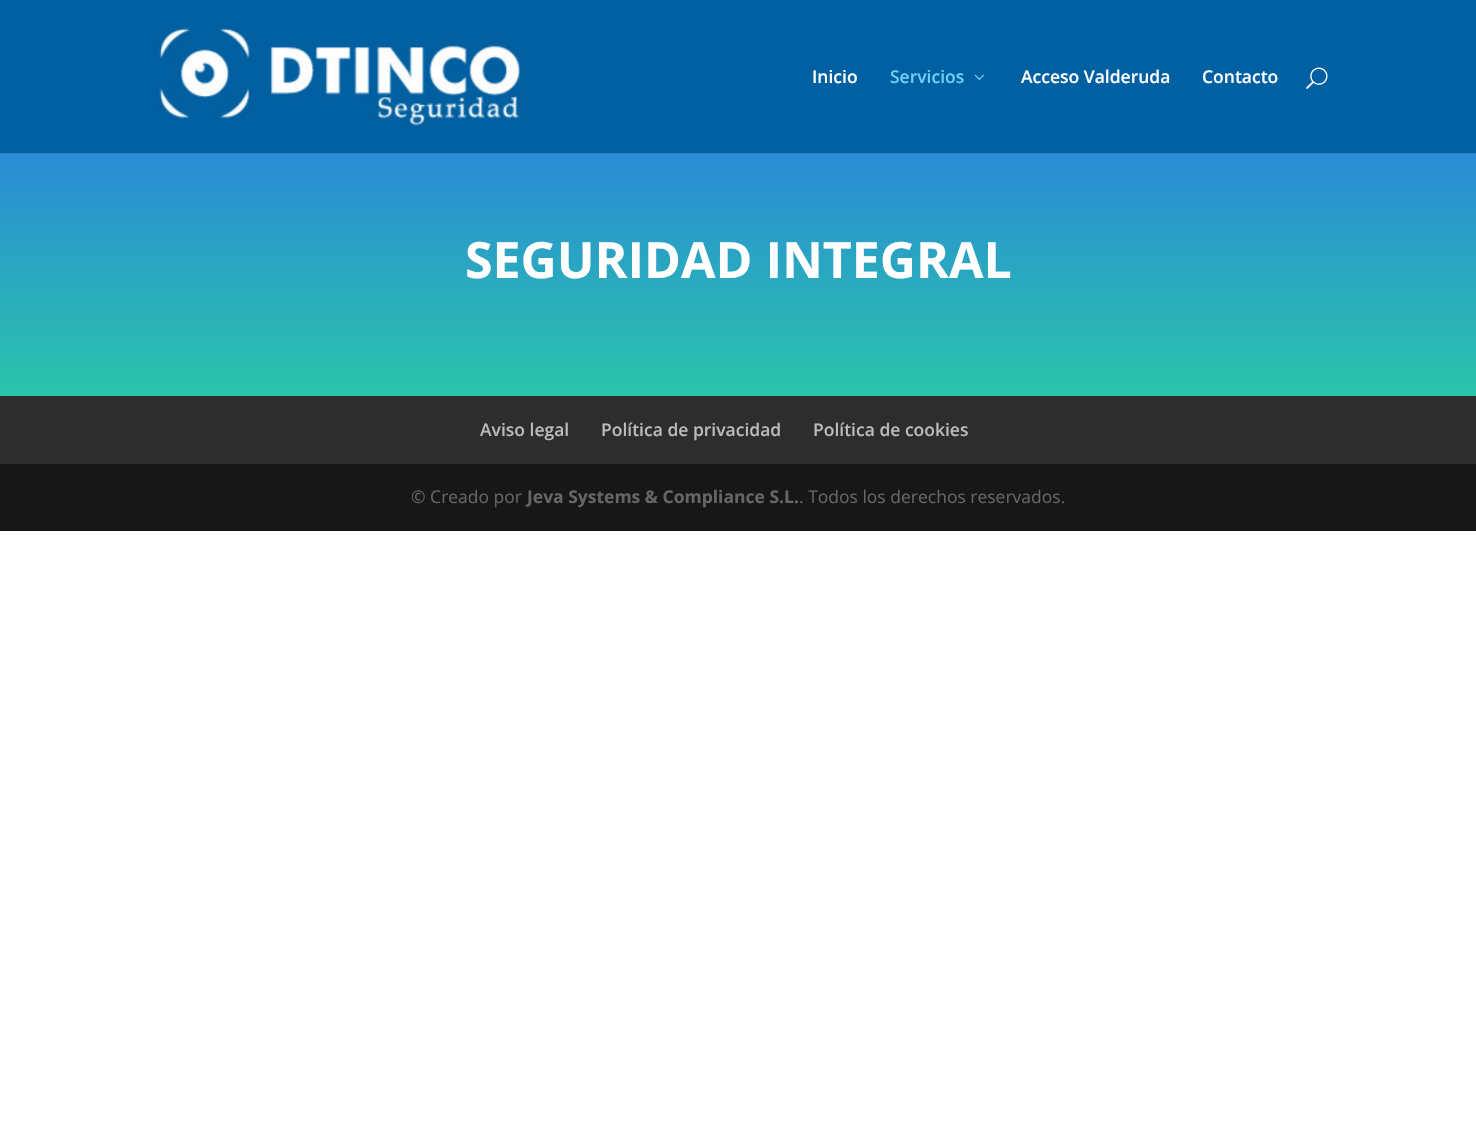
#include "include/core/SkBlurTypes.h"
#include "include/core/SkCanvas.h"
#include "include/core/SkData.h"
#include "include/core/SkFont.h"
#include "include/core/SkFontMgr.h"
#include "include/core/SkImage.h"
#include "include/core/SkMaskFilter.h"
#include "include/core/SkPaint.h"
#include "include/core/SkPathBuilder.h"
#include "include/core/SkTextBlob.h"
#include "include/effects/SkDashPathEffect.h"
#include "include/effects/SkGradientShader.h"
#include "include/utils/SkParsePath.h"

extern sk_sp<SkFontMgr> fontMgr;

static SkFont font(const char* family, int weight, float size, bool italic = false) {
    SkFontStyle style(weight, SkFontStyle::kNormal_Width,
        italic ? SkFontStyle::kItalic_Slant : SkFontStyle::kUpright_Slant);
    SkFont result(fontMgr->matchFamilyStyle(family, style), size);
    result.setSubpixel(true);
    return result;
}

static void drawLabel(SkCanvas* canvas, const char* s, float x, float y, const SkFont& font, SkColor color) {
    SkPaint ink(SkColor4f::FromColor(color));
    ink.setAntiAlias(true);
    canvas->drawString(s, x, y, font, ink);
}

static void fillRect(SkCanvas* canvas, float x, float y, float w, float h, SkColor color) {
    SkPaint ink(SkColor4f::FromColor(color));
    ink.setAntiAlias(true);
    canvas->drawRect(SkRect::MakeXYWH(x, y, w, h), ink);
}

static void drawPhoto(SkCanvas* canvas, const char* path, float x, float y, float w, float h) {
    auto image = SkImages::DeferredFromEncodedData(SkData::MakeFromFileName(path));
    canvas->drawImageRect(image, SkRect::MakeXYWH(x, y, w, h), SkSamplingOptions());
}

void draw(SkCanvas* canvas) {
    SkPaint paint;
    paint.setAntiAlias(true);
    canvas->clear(0xFFFFFFFF);
    fillRect(canvas, 0, 153, 1476, 1, 0xFF277EC1);
    fillRect(canvas, 0, 0, 1476, 153, 0xFF0160A2);
    drawPhoto(canvas, "assets/img1.png", 152, 27, 371, 100);
    SkFont font1 = font("Open Sans", 600, 17.5f);
    drawLabel(canvas, "Inicio", 812, 83, font1, 0xFFFFFFFF);
    drawLabel(canvas, "Servicios", 890, 83, font1, 0xFF6ED0F4);
    drawPhoto(canvas, "assets/img2.png", 974, 74, 10, 6);
    drawLabel(canvas, "Acceso Valderuda", 1021, 83, font1, 0xFFFFFFFF);
    drawLabel(canvas, "Contacto", 1202, 83, font1, 0xFFFFFFFF);
    drawPhoto(canvas, "assets/img3.png", 1306, 67, 22, 22);
    {
        const SkColor colors[] = {0xFF2B87DA, 0xFF29C4A9};
        const float stops[] = {0, 1};
        const SkPoint ends[] = {{738, 134}, {738, 396}};
        paint.setShader(SkGradientShader::MakeLinear(ends, colors, stops, 2, SkTileMode::kClamp));
        paint.setAlpha(255);
    }
    canvas->drawRect(SkRect::MakeXYWH(0, 154, 1476, 242), paint);
    SkFont font2 = font("Open Sans", 700, 50);
    drawLabel(canvas, "SEGURIDAD INTEGRAL", 465, 278, font2, 0xFFFFFFFF);
    fillRect(canvas, 0, 396, 1476, 68, 0xFF2D2D2D);
    drawLabel(canvas, "Aviso legal", 480, 436, font1, 0xFFBBBBBB);
    drawLabel(canvas, "Política de privacidad", 601, 436, font1, 0xFFBBBBBB);
    drawLabel(canvas, "Política de cookies", 813, 436, font1, 0xFFBBBBBB);
    fillRect(canvas, 0, 464, 1476, 67, 0xFF171717);
    SkFont font3 = font("Open Sans", 400, 17.5f);
    drawLabel(canvas, "© Creado por", 411, 503, font3, 0xFF666666);
    SkFont font4 = font("Open Sans", 700, 17.5f);
    drawLabel(canvas, "Jeva Systems & Compliance S.L.", 527, 503, font4, 0xFF666666);
    drawLabel(canvas, ". Todos los derechos reservados.", 799, 503, font3, 0xFF666666);
}
